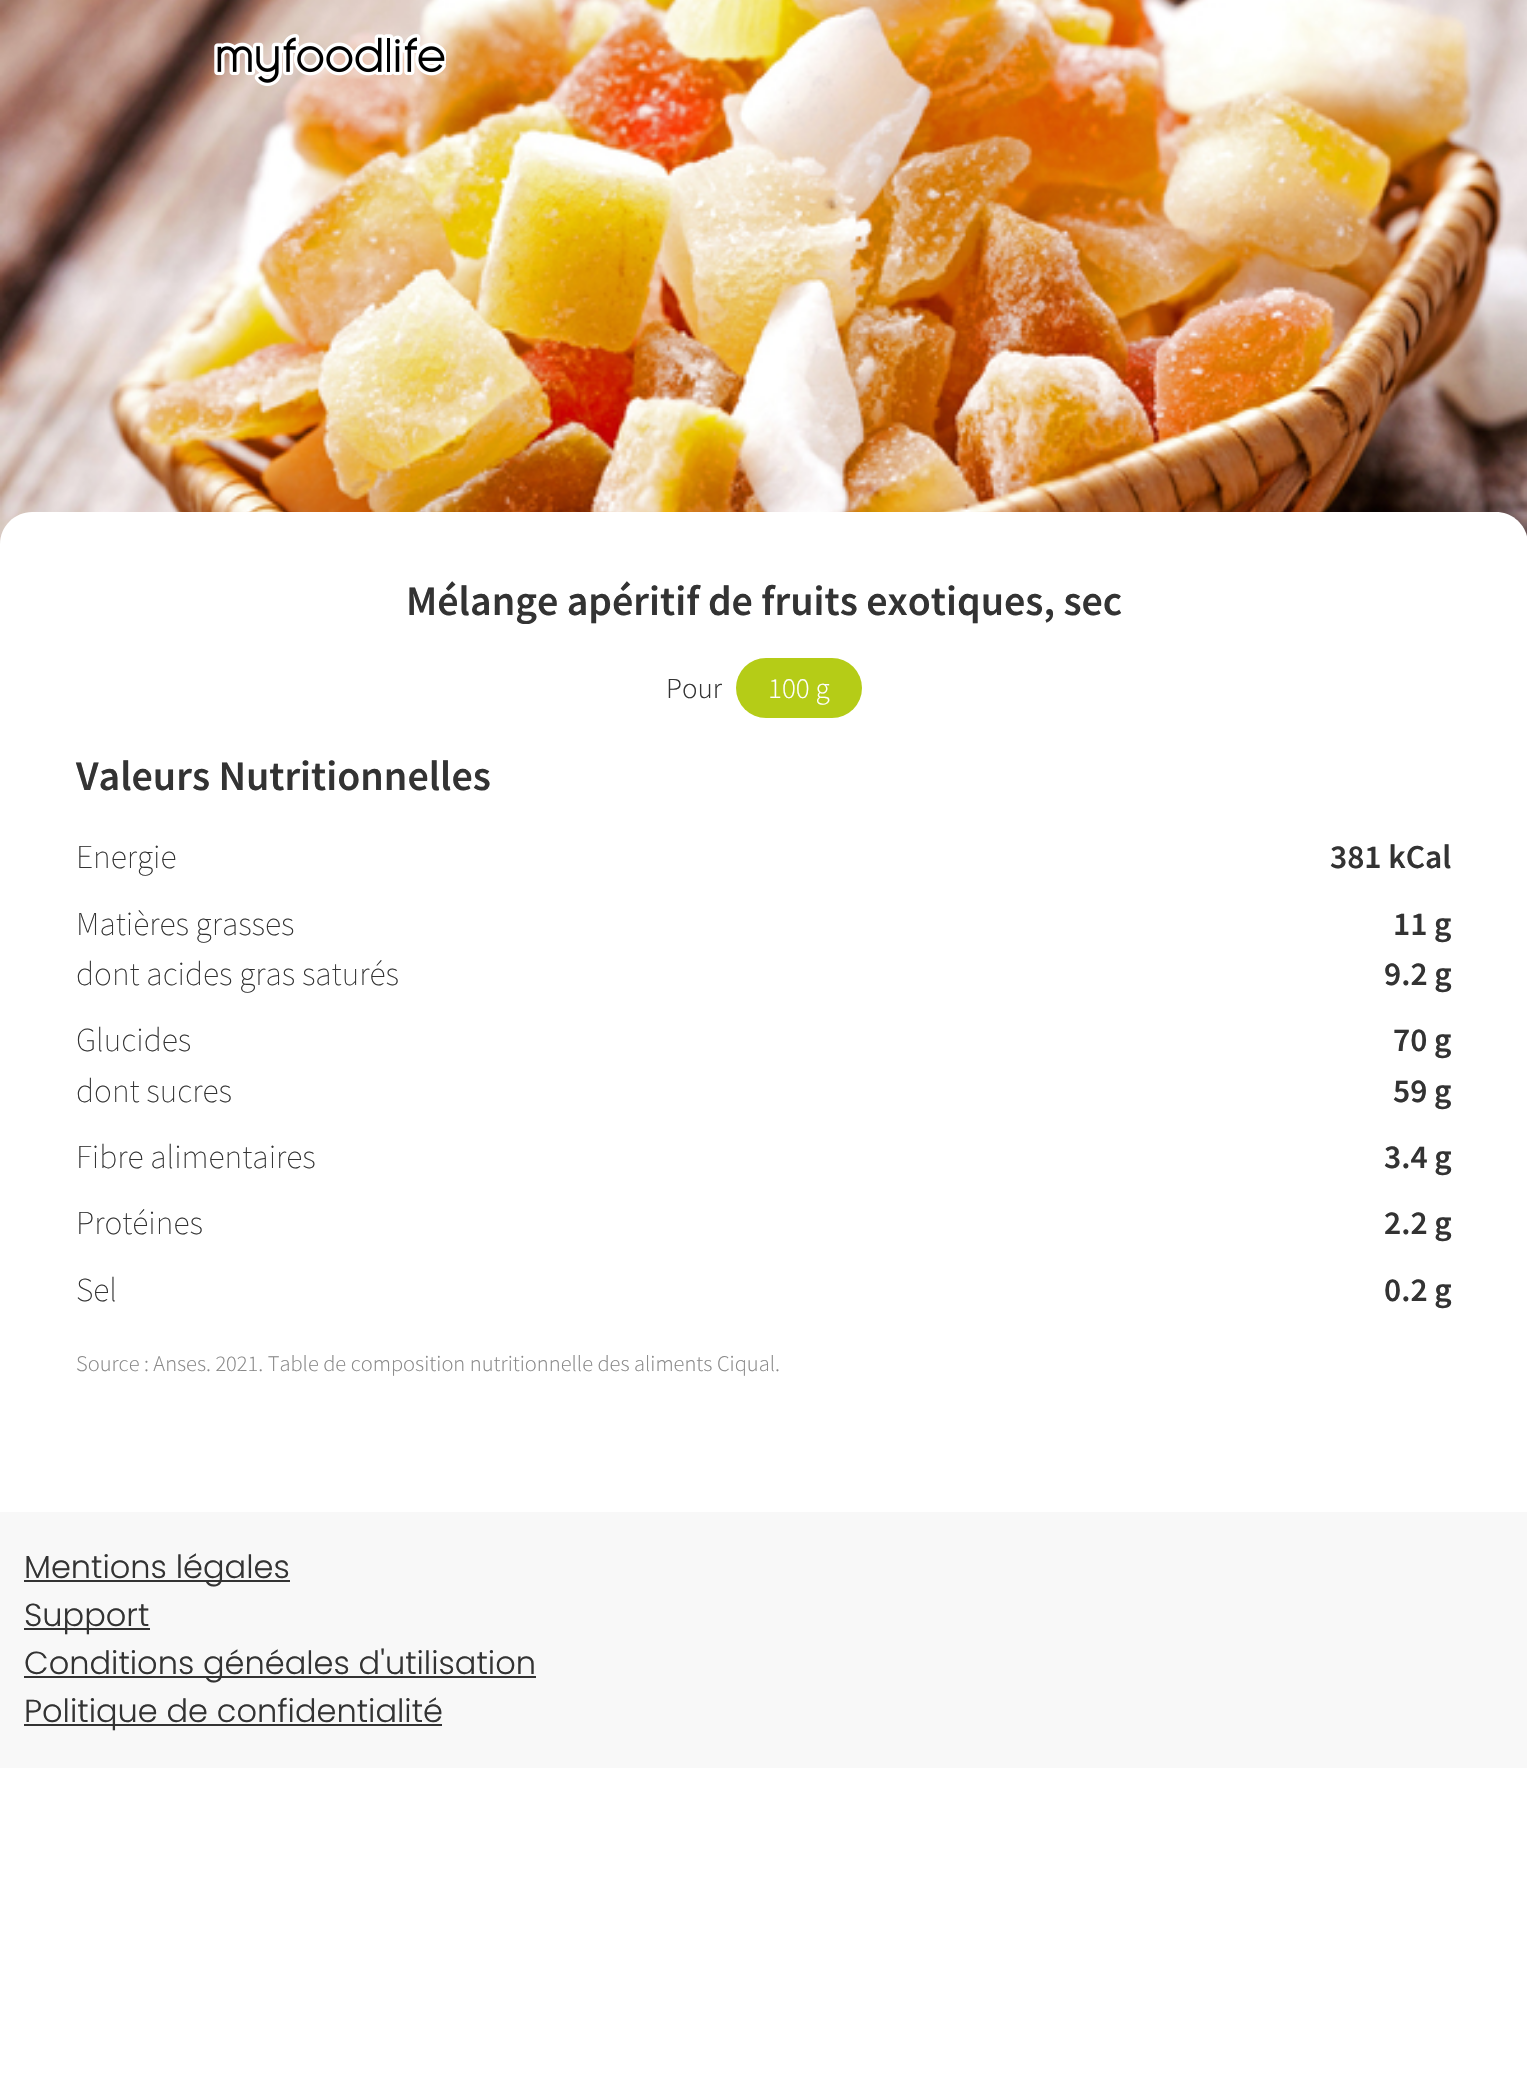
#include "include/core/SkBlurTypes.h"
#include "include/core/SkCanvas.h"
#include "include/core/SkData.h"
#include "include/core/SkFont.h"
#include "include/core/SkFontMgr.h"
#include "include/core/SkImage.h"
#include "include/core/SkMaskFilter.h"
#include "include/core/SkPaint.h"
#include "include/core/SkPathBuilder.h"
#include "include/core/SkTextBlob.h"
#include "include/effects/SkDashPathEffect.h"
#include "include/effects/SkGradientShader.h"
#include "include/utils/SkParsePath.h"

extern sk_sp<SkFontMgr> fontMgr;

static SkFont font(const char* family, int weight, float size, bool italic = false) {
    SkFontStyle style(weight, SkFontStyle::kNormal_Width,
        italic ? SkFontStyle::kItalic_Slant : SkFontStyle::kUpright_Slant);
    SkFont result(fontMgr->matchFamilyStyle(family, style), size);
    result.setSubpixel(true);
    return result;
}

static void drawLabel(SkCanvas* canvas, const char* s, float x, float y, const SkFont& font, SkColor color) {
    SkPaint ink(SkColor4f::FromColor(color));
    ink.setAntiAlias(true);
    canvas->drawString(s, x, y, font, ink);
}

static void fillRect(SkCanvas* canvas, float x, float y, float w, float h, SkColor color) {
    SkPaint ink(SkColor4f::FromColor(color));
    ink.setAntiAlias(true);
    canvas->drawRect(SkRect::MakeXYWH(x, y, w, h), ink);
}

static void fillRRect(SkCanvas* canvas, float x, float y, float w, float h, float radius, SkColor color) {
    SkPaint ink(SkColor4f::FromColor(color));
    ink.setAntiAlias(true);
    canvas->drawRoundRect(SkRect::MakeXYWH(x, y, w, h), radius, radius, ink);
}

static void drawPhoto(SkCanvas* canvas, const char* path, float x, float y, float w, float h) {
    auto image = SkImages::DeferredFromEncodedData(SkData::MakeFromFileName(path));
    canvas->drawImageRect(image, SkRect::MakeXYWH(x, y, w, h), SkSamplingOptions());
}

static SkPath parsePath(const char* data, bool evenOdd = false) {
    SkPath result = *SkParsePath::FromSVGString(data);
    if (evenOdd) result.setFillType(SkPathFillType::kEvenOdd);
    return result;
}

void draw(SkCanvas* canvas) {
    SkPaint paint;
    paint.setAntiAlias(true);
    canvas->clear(0xFFFFFFFF);
    drawPhoto(canvas, "assets/img2.png", 0, 0, 1527, 544);
    drawPhoto(canvas, "assets/img1.png", 214, 34, 232, 52);
    paint.setColor(0xFFFFFFFF);
    canvas->drawPath(parsePath("M32 512H1496C1513.5 512 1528 526.5 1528 544V1428H0V544C0 526.5 14.5 512 32 512Z"), paint);
    SkFont font1 = font("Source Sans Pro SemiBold", 600, 42);
    drawLabel(canvas, "Mélange apéritif de fruits exotiques, sec", 406, 615, font1, 0xFF333333);
    SkFont font2 = font("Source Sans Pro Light", 300, 29);
    drawLabel(canvas, "Pour", 666, 698, font2, 0xFF333333);
    fillRRect(canvas, 736, 658, 126, 60, 30, 0xFFB5CC17);
    drawLabel(canvas, "100 g", 768, 698, font2, 0xFFFFFFFF);
    drawLabel(canvas, "Valeurs Nutritionnelles", 76, 790, font1, 0xFF333333);
    SkFont font3 = font("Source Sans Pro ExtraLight", 200, 33.5f);
    drawLabel(canvas, "Energie", 76, 868, font3, 0xFF333333);
    SkFont font4 = font("Source Sans Pro SemiBold", 600, 33.5f);
    drawLabel(canvas, "381 kCal", 1330, 868, font4, 0xFF333333);
    drawLabel(canvas, "Matières grasses", 76, 935, font3, 0xFF333333);
    drawLabel(canvas, "11 g", 1393, 935, font4, 0xFF333333);
    drawLabel(canvas, "dont acides gras saturés", 76, 985, font3, 0xFF333333);
    drawLabel(canvas, "9.2 g", 1384, 985, font4, 0xFF333333);
    drawLabel(canvas, "Glucides", 76, 1051, font3, 0xFF333333);
    drawLabel(canvas, "70 g", 1393, 1051, font4, 0xFF333333);
    drawLabel(canvas, "dont sucres", 76, 1102, font3, 0xFF333333);
    drawLabel(canvas, "59 g", 1393, 1102, font4, 0xFF333333);
    drawLabel(canvas, "Fibre alimentaires", 76, 1168, font3, 0xFF333333);
    drawLabel(canvas, "3.4 g", 1384, 1168, font4, 0xFF333333);
    drawLabel(canvas, "Protéines", 76, 1234, font3, 0xFF333333);
    drawLabel(canvas, "2.2 g", 1384, 1234, font4, 0xFF333333);
    drawLabel(canvas, "Sel", 76, 1301, font3, 0xFF333333);
    drawLabel(canvas, "0.2 g", 1384, 1301, font4, 0xFF333333);
    SkFont font5 = font("Source Sans Pro Light", 300, 22.4f);
    drawLabel(canvas, "Source : Anses. 2021. Table de composition nutritionnelle des aliments Ciqual.", 76, 1371, font5, 0xFF888888);
    fillRect(canvas, 0, 1512, 1527, 256, 0xFFF8F8F8);
    fillRect(canvas, 24, 1580, 266, 2, 0xFF333333);
    SkFont font6 = font("Poppins", 300, 32);
    drawLabel(canvas, "Mentions légales", 24, 1578, font6, 0xFF333333);
    fillRect(canvas, 24, 1628, 126, 2, 0xFF333333);
    drawLabel(canvas, "Support", 24, 1626, font6, 0xFF333333);
    fillRect(canvas, 24, 1676, 512, 2, 0xFF333333);
    drawLabel(canvas, "Conditions généales d'utilisation", 24, 1674, font6, 0xFF333333);
    fillRect(canvas, 24, 1724, 418, 2, 0xFF333333);
    drawLabel(canvas, "Politique de confidentialité", 24, 1722, font6, 0xFF333333);
}
